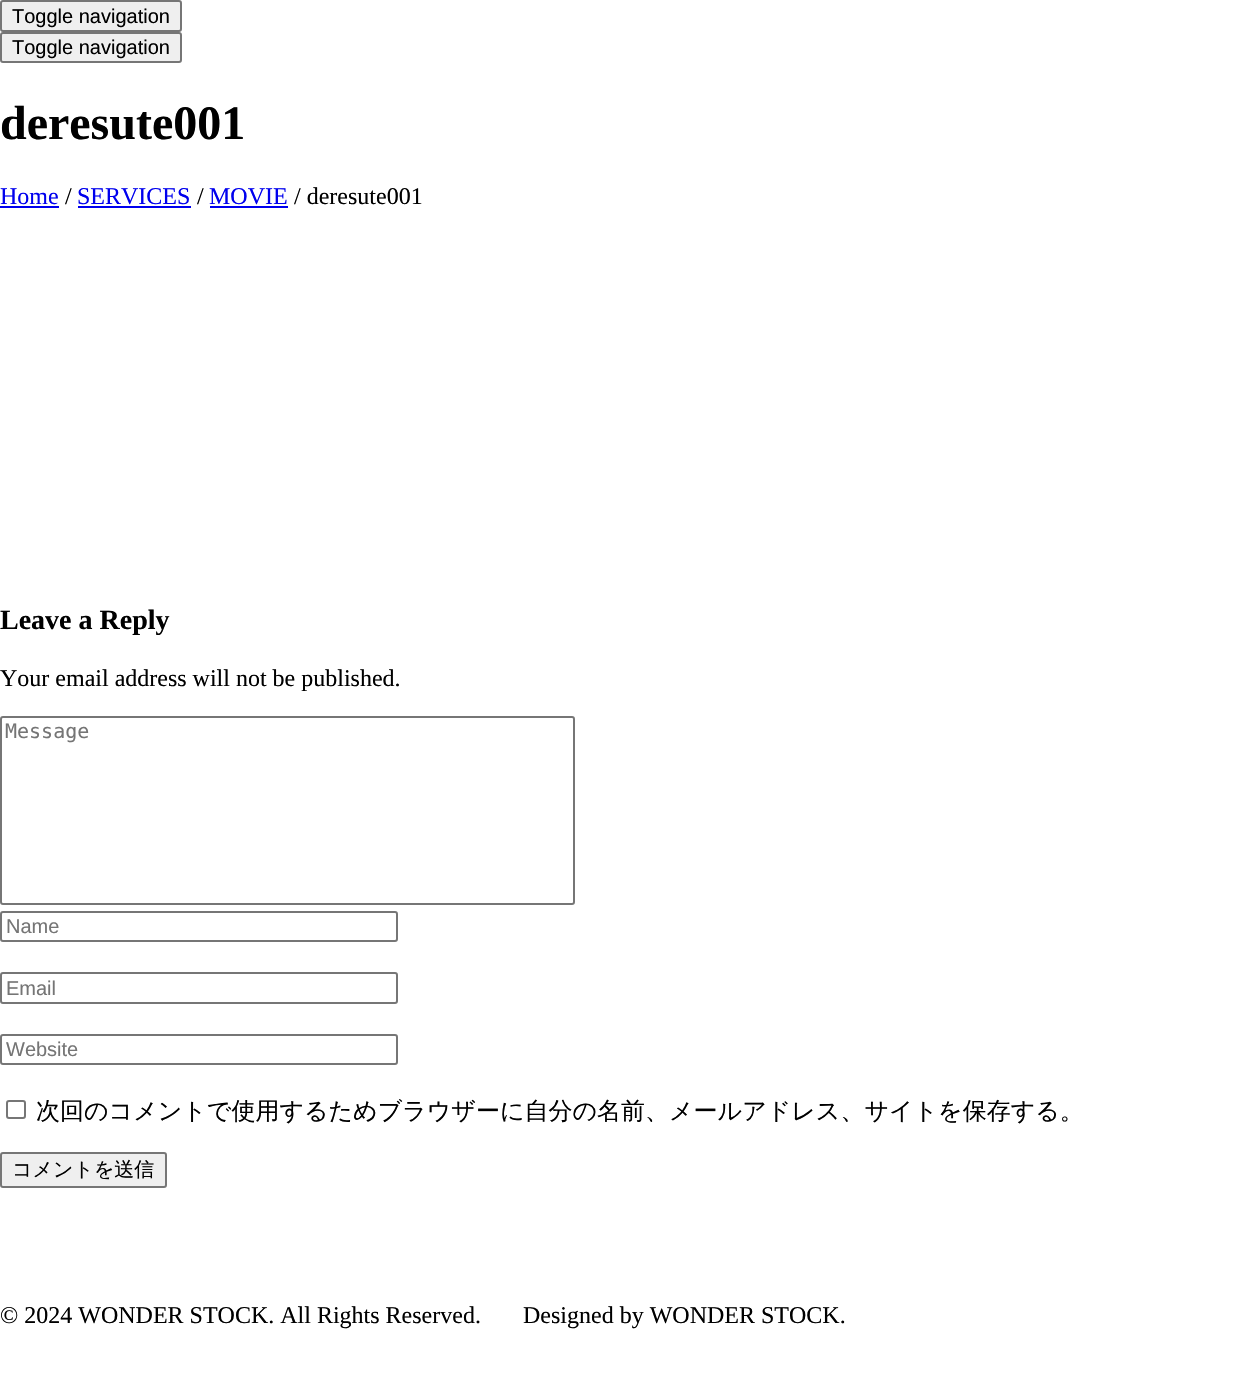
#include "include/core/SkBlurTypes.h"
#include "include/core/SkCanvas.h"
#include "include/core/SkData.h"
#include "include/core/SkFont.h"
#include "include/core/SkFontMgr.h"
#include "include/core/SkImage.h"
#include "include/core/SkMaskFilter.h"
#include "include/core/SkPaint.h"
#include "include/core/SkPathBuilder.h"
#include "include/core/SkTextBlob.h"
#include "include/effects/SkDashPathEffect.h"
#include "include/effects/SkGradientShader.h"
#include "include/utils/SkParsePath.h"

extern sk_sp<SkFontMgr> fontMgr;

static SkFont font(const char* family, int weight, float size, bool italic = false) {
    SkFontStyle style(weight, SkFontStyle::kNormal_Width,
        italic ? SkFontStyle::kItalic_Slant : SkFontStyle::kUpright_Slant);
    SkFont result(fontMgr->matchFamilyStyle(family, style), size);
    result.setSubpixel(true);
    return result;
}

static void drawLabel(SkCanvas* canvas, const char* s, float x, float y, const SkFont& font, SkColor color) {
    SkPaint ink(SkColor4f::FromColor(color));
    ink.setAntiAlias(true);
    canvas->drawString(s, x, y, font, ink);
}

static void fillRect(SkCanvas* canvas, float x, float y, float w, float h, SkColor color) {
    SkPaint ink(SkColor4f::FromColor(color));
    ink.setAntiAlias(true);
    canvas->drawRect(SkRect::MakeXYWH(x, y, w, h), ink);
}

void draw(SkCanvas* canvas) {
    SkPaint paint;
    paint.setAntiAlias(true);
    canvas->clear(0xFFFFFFFF);
    paint.setColor(0xFFEFEFEF);
    canvas->drawRoundRect(SkRect::MakeXYWH(1, 1, 180, 30), 2, 2, paint);
    paint.setStroke(true);
    paint.setStrokeWidth(2);
    paint.setColor(0xFF767676);
    canvas->drawRoundRect(SkRect::MakeXYWH(1, 1, 180, 30), 2, 2, paint);
    SkFont font1 = font("Liberation Sans", 400, 20);
    drawLabel(canvas, "Toggle navigation", 12, 23, font1, 0xFF000000);
    paint.setStroke(false);
    paint.setColor(0xFFEFEFEF);
    canvas->drawRoundRect(SkRect::MakeXYWH(1, 33, 180, 29), 2, 2, paint);
    paint.setStroke(true);
    paint.setColor(0xFF767676);
    canvas->drawRoundRect(SkRect::MakeXYWH(1, 33, 180, 29), 2, 2, paint);
    drawLabel(canvas, "Toggle navigation", 12, 54, font1, 0xFF000000);
    SkFont font2 = font("Liberation Serif", 700, 48);
    drawLabel(canvas, "deresute001", 0, 139, font2, 0xFF000000);
    SkFont font3 = font("Liberation Serif", 400, 24);
    drawLabel(canvas, "Home", 0, 204, font3, 0xFF0000EE);
    fillRect(canvas, 0, 206, 59, 2, 0xFF0000EE);
    drawLabel(canvas, "/", 65, 204, font3, 0xFF000000);
    drawLabel(canvas, "SERVICES", 77, 204, font3, 0xFF0000EE);
    fillRect(canvas, 78, 206, 113, 2, 0xFF0000EE);
    drawLabel(canvas, "/", 197, 204, font3, 0xFF000000);
    drawLabel(canvas, "MOVIE", 209, 204, font3, 0xFF0000EE);
    fillRect(canvas, 210, 206, 78, 2, 0xFF0000EE);
    drawLabel(canvas, "/ deresute001", 294, 204, font3, 0xFF000000);
    SkFont font4 = font("Liberation Serif", 700, 28);
    drawLabel(canvas, "Leave a Reply", 0, 629, font4, 0xFF000000);
    drawLabel(canvas, "Your email address will not be published.", 0, 686, font3, 0xFF000000);
    canvas->drawRoundRect(SkRect::MakeXYWH(1, 717, 573, 187), 2, 2, paint);
    SkFont font5 = font("DejaVu Sans Mono", 400, 20);
    drawLabel(canvas, "Message", 5, 738, font5, 0xFF757575);
    canvas->drawRoundRect(SkRect::MakeXYWH(1, 912, 396, 29), 2, 2, paint);
    drawLabel(canvas, "Name", 6, 933, font1, 0xFF757575);
    canvas->drawRoundRect(SkRect::MakeXYWH(1, 973, 396, 30), 2, 2, paint);
    drawLabel(canvas, "Email", 6, 995, font1, 0xFF757575);
    canvas->drawRoundRect(SkRect::MakeXYWH(1, 1035, 396, 29), 2, 2, paint);
    drawLabel(canvas, "Website", 6, 1056, font1, 0xFF757575);
    canvas->drawRoundRect(SkRect::MakeXYWH(7, 1101, 18, 17), 2, 2, paint);
    SkFont font6 = font("WenQuanYi Zen Hei", 500, 24);
    drawLabel(canvas, "次回のコメントで使用するためブラウザーに自分の名前、メールアドレス、サイトを保存する。", 36, 1119, font6, 0xFF000000);
    paint.setStroke(false);
    paint.setColor(0xFFEFEFEF);
    canvas->drawRoundRect(SkRect::MakeXYWH(1, 1153, 165, 34), 2, 2, paint);
    paint.setStroke(true);
    paint.setColor(0xFF767676);
    canvas->drawRoundRect(SkRect::MakeXYWH(1, 1153, 165, 34), 2, 2, paint);
    SkFont font7 = font("WenQuanYi Zen Hei", 500, 20);
    drawLabel(canvas, "コメントを送信", 12, 1176, font7, 0xFF000000);
    drawLabel(canvas, "© 2024 WONDER STOCK. All Rights Reserved.", 0, 1323, font3, 0xFF000000);
    drawLabel(canvas, "Designed by WONDER STOCK.", 523, 1323, font3, 0xFF000000);
}
